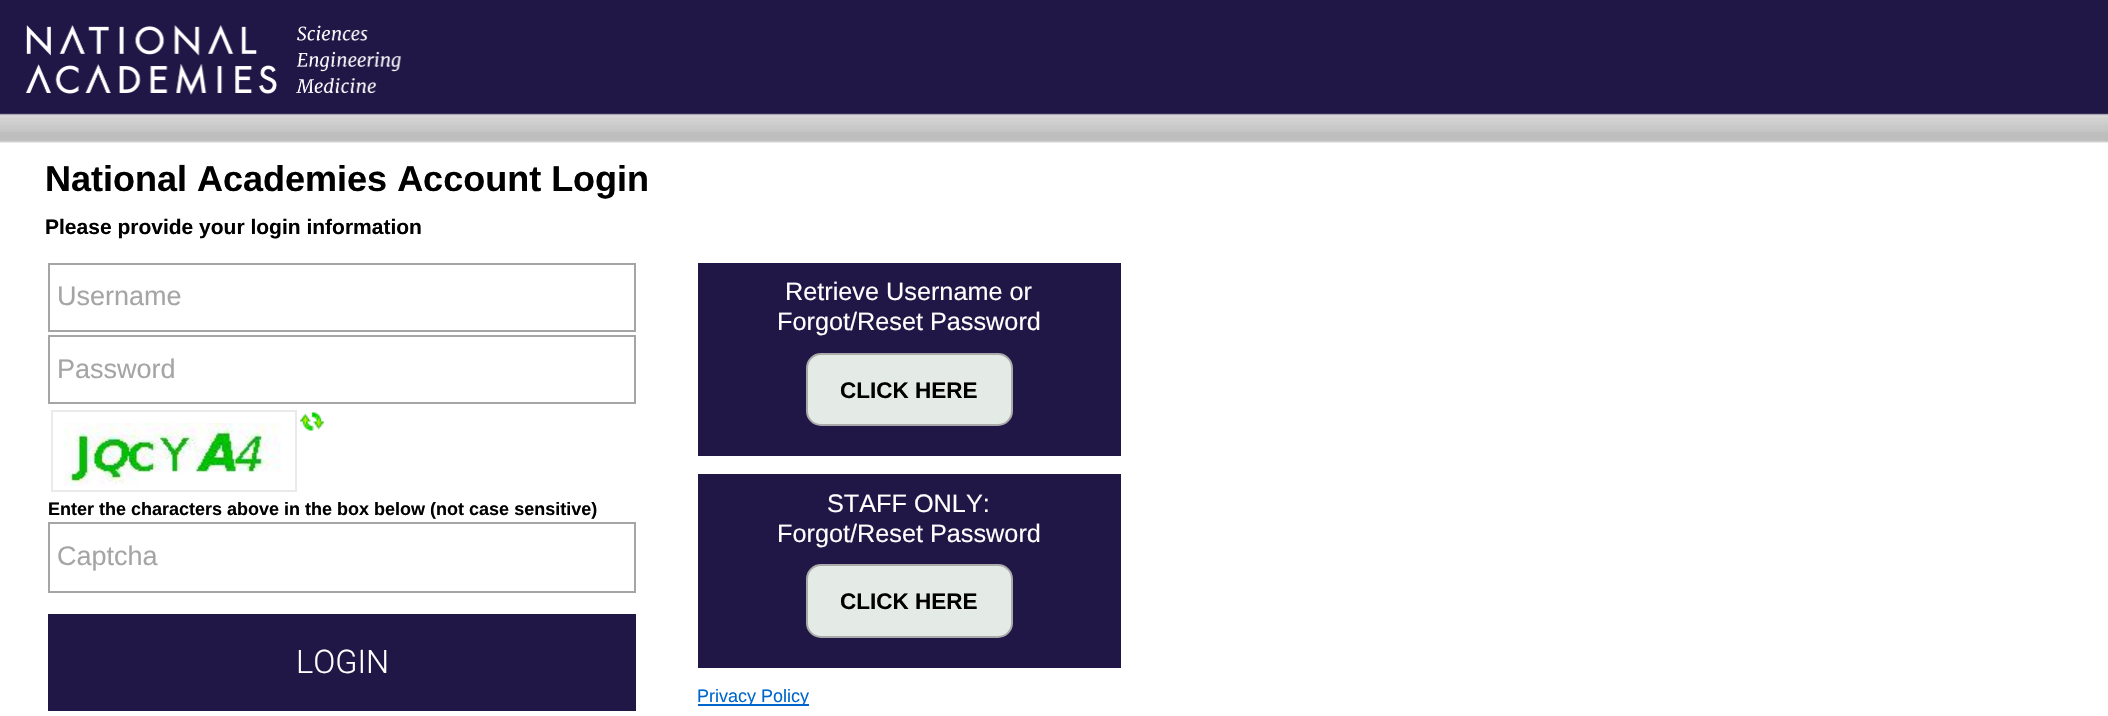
#include "include/core/SkBlurTypes.h"
#include "include/core/SkCanvas.h"
#include "include/core/SkData.h"
#include "include/core/SkFont.h"
#include "include/core/SkFontMgr.h"
#include "include/core/SkImage.h"
#include "include/core/SkMaskFilter.h"
#include "include/core/SkPaint.h"
#include "include/core/SkPathBuilder.h"
#include "include/core/SkTextBlob.h"
#include "include/effects/SkDashPathEffect.h"
#include "include/effects/SkGradientShader.h"
#include "include/utils/SkParsePath.h"

extern sk_sp<SkFontMgr> fontMgr;

static SkFont font(const char* family, int weight, float size, bool italic = false) {
    SkFontStyle style(weight, SkFontStyle::kNormal_Width,
        italic ? SkFontStyle::kItalic_Slant : SkFontStyle::kUpright_Slant);
    SkFont result(fontMgr->matchFamilyStyle(family, style), size);
    result.setSubpixel(true);
    return result;
}

static void drawLabel(SkCanvas* canvas, const char* s, float x, float y, const SkFont& font, SkColor color) {
    SkPaint ink(SkColor4f::FromColor(color));
    ink.setAntiAlias(true);
    canvas->drawString(s, x, y, font, ink);
}

static void fillRect(SkCanvas* canvas, float x, float y, float w, float h, SkColor color) {
    SkPaint ink(SkColor4f::FromColor(color));
    ink.setAntiAlias(true);
    canvas->drawRect(SkRect::MakeXYWH(x, y, w, h), ink);
}

static void drawPhoto(SkCanvas* canvas, const char* path, float x, float y, float w, float h) {
    auto image = SkImages::DeferredFromEncodedData(SkData::MakeFromFileName(path));
    canvas->drawImageRect(image, SkRect::MakeXYWH(x, y, w, h), SkSamplingOptions());
}

void draw(SkCanvas* canvas) {
    SkPaint paint;
    paint.setAntiAlias(true);
    canvas->clear(0xFFFFFFFF);
    drawPhoto(canvas, "assets/img1.png", 0, 0, 2108, 143);
    drawPhoto(canvas, "assets/img2.png", 25, 25, 377, 70);
    SkFont font1 = font("Liberation Sans", 700, 36);
    drawLabel(canvas, "National Academies Account Login", 45, 191, font1, 0xFF000000);
    SkFont font2 = font("Liberation Sans", 700, 21);
    drawLabel(canvas, "Please provide your login information", 45, 234, font2, 0xFF000000);
    paint.setStroke(true);
    paint.setStrokeWidth(2);
    paint.setColor(0xFFA5A5A5);
    canvas->drawRect(SkRect::MakeXYWH(49, 264, 586, 67), paint);
    SkFont font3 = font("Liberation Sans", 400, 27);
    drawLabel(canvas, "Username", 57, 305, font3, 0xFFA5A5A5);
    canvas->drawRect(SkRect::MakeXYWH(49, 336, 586, 67), paint);
    drawLabel(canvas, "Password", 57, 378, font3, 0xFFA5A5A5);
    paint.setColor(0xFFEAEAEA);
    canvas->drawRect(SkRect::MakeXYWH(52, 411, 244, 80), paint);
    drawPhoto(canvas, "assets/img3.png", 64, 423, 217, 63);
    drawPhoto(canvas, "assets/img4.png", 300, 412, 24, 19);
    SkFont font4 = font("Liberation Sans", 700, 18);
    drawLabel(canvas, "Enter the characters above in the box below (not case sensitive)", 48, 515, font4, 0xFF000000);
    paint.setColor(0xFFA5A5A5);
    canvas->drawRect(SkRect::MakeXYWH(49, 523, 586, 69), paint);
    drawLabel(canvas, "Captcha", 57, 565, font3, 0xFFA5A5A5);
    fillRect(canvas, 48, 614, 588, 97, 0xFF211747);
    SkFont font5 = font("Roboto", 300, 32.5f);
    drawLabel(canvas, "LOGIN", 296, 673, font5, 0xFFFFFFFF);
    fillRect(canvas, 698, 263, 423, 193, 0xFF211747);
    SkFont font6 = font("Liberation Sans", 400, 25.25f);
    drawLabel(canvas, "Retrieve Username or", 785, 300, font6, 0xFFFFFFFF);
    drawLabel(canvas, "Forgot/Reset Password", 777, 330, font6, 0xFFFFFFFF);
    paint.setStroke(false);
    paint.setColor(0xFFE4EBE6);
    canvas->drawRoundRect(SkRect::MakeXYWH(807, 354, 205, 71), 14, 14, paint);
    paint.setStroke(true);
    paint.setColor(0xFFAAAAAA);
    canvas->drawRoundRect(SkRect::MakeXYWH(807, 354, 205, 71), 14, 14, paint);
    SkFont font7 = font("Liberation Sans", 700, 22.5f);
    drawLabel(canvas, "CLICK HERE", 840, 398, font7, 0xFF000000);
    fillRect(canvas, 698, 474, 423, 194, 0xFF211747);
    drawLabel(canvas, "STAFF ONLY:", 827, 512, font6, 0xFFFFFFFF);
    drawLabel(canvas, "Forgot/Reset Password", 777, 542, font6, 0xFFFFFFFF);
    paint.setStroke(false);
    paint.setColor(0xFFE4EBE6);
    canvas->drawRoundRect(SkRect::MakeXYWH(807, 565, 205, 72), 14, 14, paint);
    paint.setStroke(true);
    paint.setColor(0xFFAAAAAA);
    canvas->drawRoundRect(SkRect::MakeXYWH(807, 565, 205, 72), 14, 14, paint);
    drawLabel(canvas, "CLICK HERE", 840, 609, font7, 0xFF000000);
    fillRect(canvas, 698, 704, 111, 2, 0xFF0066CC);
    SkFont font8 = font("Liberation Sans", 400, 18);
    drawLabel(canvas, "Privacy Policy", 697, 702, font8, 0xFF0066CC);
}
